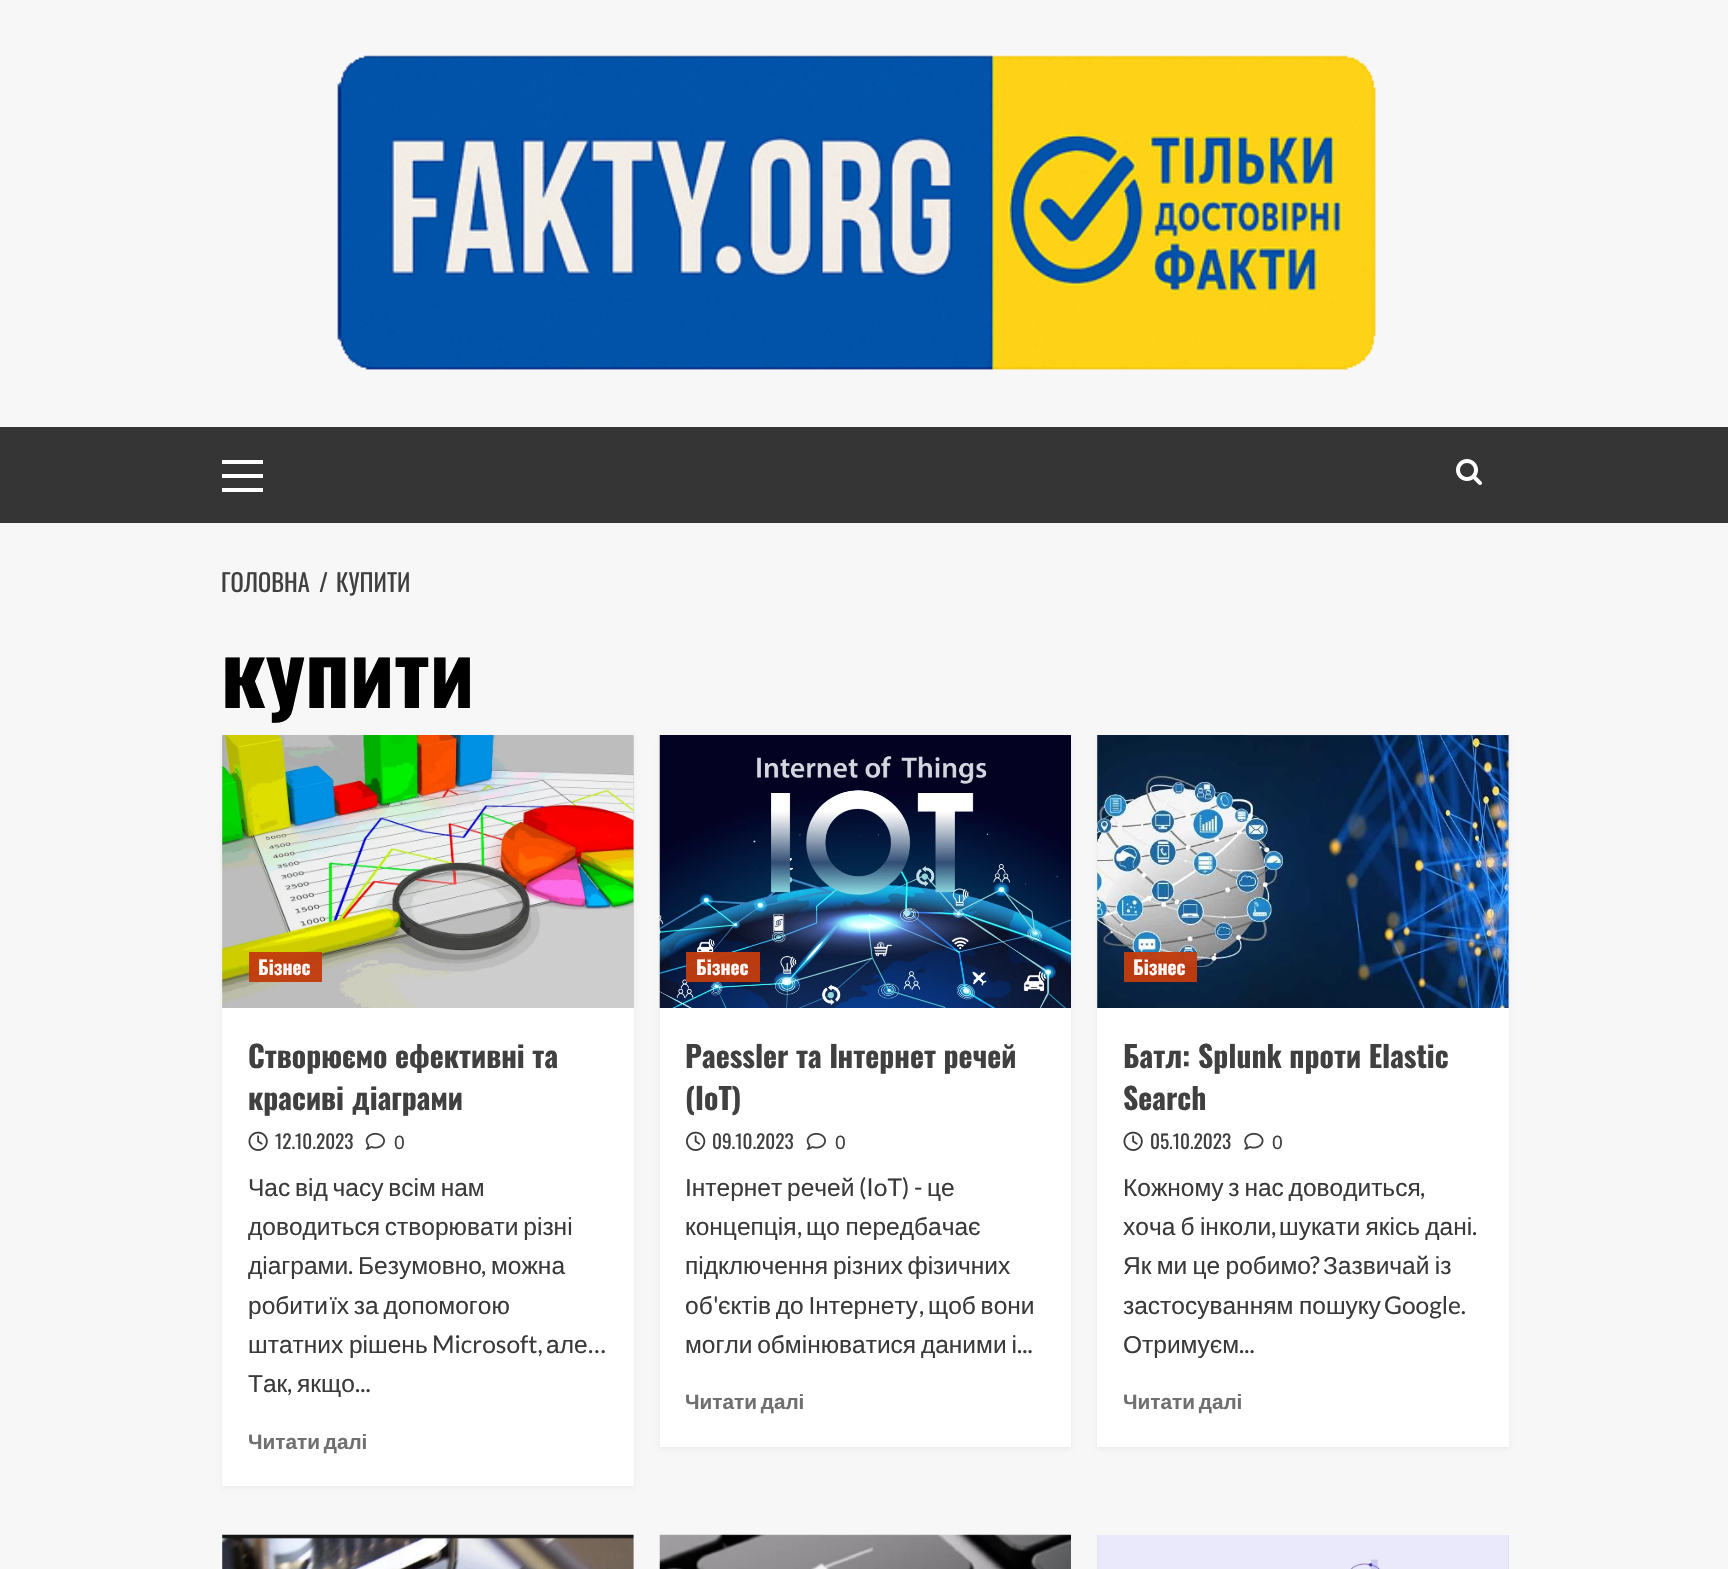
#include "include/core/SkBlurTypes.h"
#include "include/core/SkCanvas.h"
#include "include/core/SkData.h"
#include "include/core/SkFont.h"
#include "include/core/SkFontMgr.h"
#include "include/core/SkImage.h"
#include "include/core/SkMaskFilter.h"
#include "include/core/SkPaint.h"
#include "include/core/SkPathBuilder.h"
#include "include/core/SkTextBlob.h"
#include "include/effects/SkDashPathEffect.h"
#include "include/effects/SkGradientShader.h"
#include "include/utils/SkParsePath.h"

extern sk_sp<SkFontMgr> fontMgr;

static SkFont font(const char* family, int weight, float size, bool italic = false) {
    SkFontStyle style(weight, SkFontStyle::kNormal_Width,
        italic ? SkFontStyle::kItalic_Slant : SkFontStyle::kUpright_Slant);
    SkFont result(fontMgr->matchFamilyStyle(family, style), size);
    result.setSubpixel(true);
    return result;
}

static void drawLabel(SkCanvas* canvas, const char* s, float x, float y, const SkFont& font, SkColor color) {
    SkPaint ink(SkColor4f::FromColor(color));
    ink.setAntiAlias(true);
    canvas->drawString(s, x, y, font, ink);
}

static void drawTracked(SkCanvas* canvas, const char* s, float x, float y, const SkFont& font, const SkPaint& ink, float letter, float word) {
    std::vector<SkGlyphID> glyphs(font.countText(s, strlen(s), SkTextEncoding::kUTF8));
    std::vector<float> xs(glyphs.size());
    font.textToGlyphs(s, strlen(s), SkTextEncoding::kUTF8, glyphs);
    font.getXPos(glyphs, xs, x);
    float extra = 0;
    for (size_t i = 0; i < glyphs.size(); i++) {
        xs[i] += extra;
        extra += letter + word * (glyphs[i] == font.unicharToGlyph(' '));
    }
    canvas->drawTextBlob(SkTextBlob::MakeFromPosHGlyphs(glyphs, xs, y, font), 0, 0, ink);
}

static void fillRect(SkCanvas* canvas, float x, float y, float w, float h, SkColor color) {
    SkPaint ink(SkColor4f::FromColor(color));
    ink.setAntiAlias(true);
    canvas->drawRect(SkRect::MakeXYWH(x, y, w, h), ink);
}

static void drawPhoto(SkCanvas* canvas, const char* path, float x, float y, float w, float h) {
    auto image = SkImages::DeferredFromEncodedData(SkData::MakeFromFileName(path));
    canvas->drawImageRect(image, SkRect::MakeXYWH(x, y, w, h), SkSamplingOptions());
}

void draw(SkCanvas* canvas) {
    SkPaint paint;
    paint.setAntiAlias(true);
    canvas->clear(0xFFF7F7F7);
    drawPhoto(canvas, "assets/img1.png", 337, 55, 1039, 315);
    fillRect(canvas, 0, 427, 1728, 96, 0xFF353535);
    fillRect(canvas, 222, 474, 41, 4, 0xFFFFFFFF);
    fillRect(canvas, 222, 460, 41, 4, 0xFFFFFFFF);
    fillRect(canvas, 222, 488, 41, 4, 0xFFFFFFFF);
    drawPhoto(canvas, "assets/img2.png", 1456, 459, 26, 26);
    SkFont font1 = font("Oswald", 400, 24.5f);
    drawLabel(canvas, "ГОЛОВНА", 221, 592, font1, 0xFF404040);
    drawLabel(canvas, "/", 319, 592, font1, 0xFF404040);
    drawLabel(canvas, "КУПИТИ", 336, 592, font1, 0xFF404040);
    SkFont font2 = font("Oswald", 700, 87.5f);
    drawLabel(canvas, "купити", 221, 708, font2, 0xFF000000);
    paint.setColor(0x0D000000);
    paint.setMaskFilter(SkMaskFilter::MakeBlur(kNormal_SkBlurStyle, 2));
    canvas->drawRect(SkRect::MakeXYWH(222, 737, 412, 751), paint);
    paint.setMaskFilter(nullptr);
    fillRect(canvas, 222, 1008, 412, 478, 0xFFFFFFFF);
    fillRect(canvas, 222, 735, 412, 273, 0xFFD8D8D8);
    drawPhoto(canvas, "assets/img3.png", 222, 735, 412, 273);
    fillRect(canvas, 249, 952, 73, 30, 0xF5C23B0E);
    SkFont font3 = font("Oswald", 700, 19.25f);
    drawLabel(canvas, "Бізнес", 258, 975, font3, 0xFFFDF7F6);
    SkFont font4 = font("Oswald", 700, 29.75f);
    drawLabel(canvas, "Створюємо ефективні та", 248, 1068, font4, 0xFF404040);
    drawLabel(canvas, "красиві діаграми", 248, 1110, font4, 0xFF404040);
    drawPhoto(canvas, "assets/img4.png", 248, 1131, 20, 20);
    SkFont font5 = font("Oswald", 400, 19.25f);
    drawLabel(canvas, "12.10.2023", 275, 1149, font5, 0xFF404040);
    drawPhoto(canvas, "assets/img5.png", 365, 1132, 20, 18);
    SkFont font6 = font("Liberation Sans", 400, 19.25f);
    drawLabel(canvas, "0", 394, 1149, font6, 0xFF404040);
    SkFont font7 = font("Liberation Sans", 400, 24.5f);
    paint.setColor(0xFF3A3A3A);
    drawTracked(canvas, "Час від часу всім нам", 248, 1196, font7, paint, 0, -2);
    drawTracked(canvas, "доводиться створювати різні", 248, 1235, font7, paint, 0, -2);
    drawLabel(canvas, "діаграми", 248, 1274, font7, 0xFF3A3A3A);
    SkFont font8 = font("Lato", 400, 24.5f);
    drawLabel(canvas, ".", 348, 1274, font8, 0xFF3A3A3A);
    drawLabel(canvas, "Безумовно", 358, 1274, font7, 0xFF3A3A3A);
    drawLabel(canvas, ",", 481, 1274, font8, 0xFF3A3A3A);
    drawLabel(canvas, "можна", 491, 1274, font7, 0xFF3A3A3A);
    drawLabel(canvas, "робити", 248, 1314, font7, 0xFF3A3A3A);
    drawTracked(canvas, "їх за допомогою", 330, 1314, font7, paint, 0, -2);
    drawTracked(canvas, "штатних рішень", 248, 1353, font7, paint, 0, -1);
    drawLabel(canvas, "Microsoft,", 432, 1353, font8, 0xFF3A3A3A);
    drawLabel(canvas, "але", 546, 1353, font7, 0xFF3A3A3A);
    drawLabel(canvas, "…", 588, 1353, font8, 0xFF3A3A3A);
    drawLabel(canvas, "Так", 248, 1392, font7, 0xFF3A3A3A);
    drawLabel(canvas, ",", 287, 1392, font8, 0xFF3A3A3A);
    drawLabel(canvas, "якщо", 297, 1392, font7, 0xFF3A3A3A);
    drawLabel(canvas, "...", 355, 1392, font8, 0xFF3A3A3A);
    SkFont font9 = font("Liberation Sans", 700, 20.75f);
    paint.setColor(0xFF707070);
    drawTracked(canvas, "Читати далі", 248, 1449, font9, paint, 0, -2);
    paint.setColor(0x0D000000);
    paint.setMaskFilter(SkMaskFilter::MakeBlur(kNormal_SkBlurStyle, 2));
    canvas->drawRect(SkRect::MakeXYWH(660, 737, 411, 712), paint);
    paint.setMaskFilter(nullptr);
    fillRect(canvas, 660, 1008, 411, 439, 0xFFFFFFFF);
    drawPhoto(canvas, "assets/img6.png", 659, 735, 412, 273);
    fillRect(canvas, 686, 952, 74, 30, 0xF5C23B0E);
    drawLabel(canvas, "Бізнес", 696, 975, font3, 0xFFFDF7F6);
    drawLabel(canvas, "Paessler та Інтернет речей", 685, 1068, font4, 0xFF404040);
    drawLabel(canvas, "(IoT)", 685, 1110, font4, 0xFF404040);
    drawPhoto(canvas, "assets/img7.png", 686, 1131, 20, 20);
    drawLabel(canvas, "09.10.2023", 712, 1149, font5, 0xFF404040);
    drawPhoto(canvas, "assets/img5.png", 806, 1132, 20, 18);
    drawLabel(canvas, "0", 835, 1149, font6, 0xFF404040);
    drawLabel(canvas, "Інтернет", 685, 1196, font7, 0xFF3A3A3A);
    drawLabel(canvas, "речей", 787, 1196, font7, 0xFF3A3A3A);
    drawLabel(canvas, "(IoT) -", 859, 1196, font8, 0xFF3A3A3A);
    drawLabel(canvas, "це", 927, 1196, font7, 0xFF3A3A3A);
    drawLabel(canvas, "концепція", 685, 1235, font7, 0xFF3A3A3A);
    drawLabel(canvas, ",", 797, 1235, font8, 0xFF3A3A3A);
    paint.setColor(0xFF3A3A3A);
    drawTracked(canvas, "що передбачає", 806, 1235, font7, paint, 0, -1);
    drawTracked(canvas, "підключення різних фізичних", 685, 1274, font7, paint, 0, -2);
    drawLabel(canvas, "об", 685, 1314, font7, 0xFF3A3A3A);
    drawLabel(canvas, "'", 713, 1314, font8, 0xFF3A3A3A);
    drawTracked(canvas, "єктів до Інтернету", 718, 1314, font7, paint, 0, -2);
    drawLabel(canvas, ",", 919, 1314, font8, 0xFF3A3A3A);
    drawTracked(canvas, "щоб вони", 928, 1314, font7, paint, 0, -2);
    drawTracked(canvas, "могли обмінюватися даними і", 685, 1353, font7, paint, 0, -2);
    drawLabel(canvas, "...", 1017, 1353, font8, 0xFF3A3A3A);
    paint.setColor(0xFF707070);
    drawTracked(canvas, "Читати далі", 685, 1409, font9, paint, 0, -2);
    paint.setColor(0x0D000000);
    paint.setMaskFilter(SkMaskFilter::MakeBlur(kNormal_SkBlurStyle, 2));
    canvas->drawRect(SkRect::MakeXYWH(1097, 737, 412, 712), paint);
    paint.setMaskFilter(nullptr);
    fillRect(canvas, 1097, 1008, 412, 439, 0xFFFFFFFF);
    fillRect(canvas, 1097, 735, 412, 273, 0xFFD8D8D8);
    drawPhoto(canvas, "assets/img8.png", 1097, 735, 412, 273);
    fillRect(canvas, 1124, 952, 73, 30, 0xF5C23B0E);
    drawLabel(canvas, "Бізнес", 1133, 975, font3, 0xFFFDF7F6);
    drawLabel(canvas, "Батл: Splunk проти Elastic", 1123, 1068, font4, 0xFF404040);
    drawLabel(canvas, "Search", 1123, 1110, font4, 0xFF404040);
    drawPhoto(canvas, "assets/img4.png", 1123, 1131, 20, 20);
    drawLabel(canvas, "05.10.2023", 1150, 1149, font5, 0xFF404040);
    drawPhoto(canvas, "assets/img9.png", 1244, 1132, 20, 18);
    drawLabel(canvas, "0", 1272, 1149, font6, 0xFF404040);
    paint.setColor(0xFF3A3A3A);
    drawTracked(canvas, "Кожному з нас доводиться", 1123, 1196, font7, paint, 0, -2);
    drawLabel(canvas, ",", 1420, 1196, font8, 0xFF3A3A3A);
    drawTracked(canvas, "хоча б інколи", 1123, 1235, font7, paint, 0, -1.5f);
    drawLabel(canvas, ",", 1271, 1235, font8, 0xFF3A3A3A);
    drawTracked(canvas, "шукати якісь дані", 1279, 1235, font7, paint, 0, -1.5f);
    drawLabel(canvas, ".", 1472, 1235, font8, 0xFF3A3A3A);
    drawTracked(canvas, "Як ми це робимо", 1123, 1274, font7, paint, 0, -1.5f);
    drawLabel(canvas, "?", 1310, 1274, font8, 0xFF3A3A3A);
    drawTracked(canvas, "Зазвичай із", 1323, 1274, font7, paint, 0, -1.5f);
    drawTracked(canvas, "застосуванням пошуку", 1123, 1314, font7, paint, 0, -1);
    drawLabel(canvas, "Google.", 1384, 1314, font8, 0xFF3A3A3A);
    drawLabel(canvas, "Отримуєм", 1123, 1353, font7, 0xFF3A3A3A);
    drawLabel(canvas, "...", 1239, 1353, font8, 0xFF3A3A3A);
    paint.setColor(0xFF707070);
    drawTracked(canvas, "Читати далі", 1123, 1409, font9, paint, 0, -2);
    fillRect(canvas, 222, 1535, 412, 34, 0xFFD8D8D8);
    drawPhoto(canvas, "assets/img10.png", 222, 1534, 412, 35);
    drawPhoto(canvas, "assets/img11.png", 659, 1534, 412, 35);
    fillRect(canvas, 1097, 1535, 412, 34, 0xFFD8D8D8);
    drawPhoto(canvas, "assets/img12.png", 1097, 1535, 412, 34);
}
